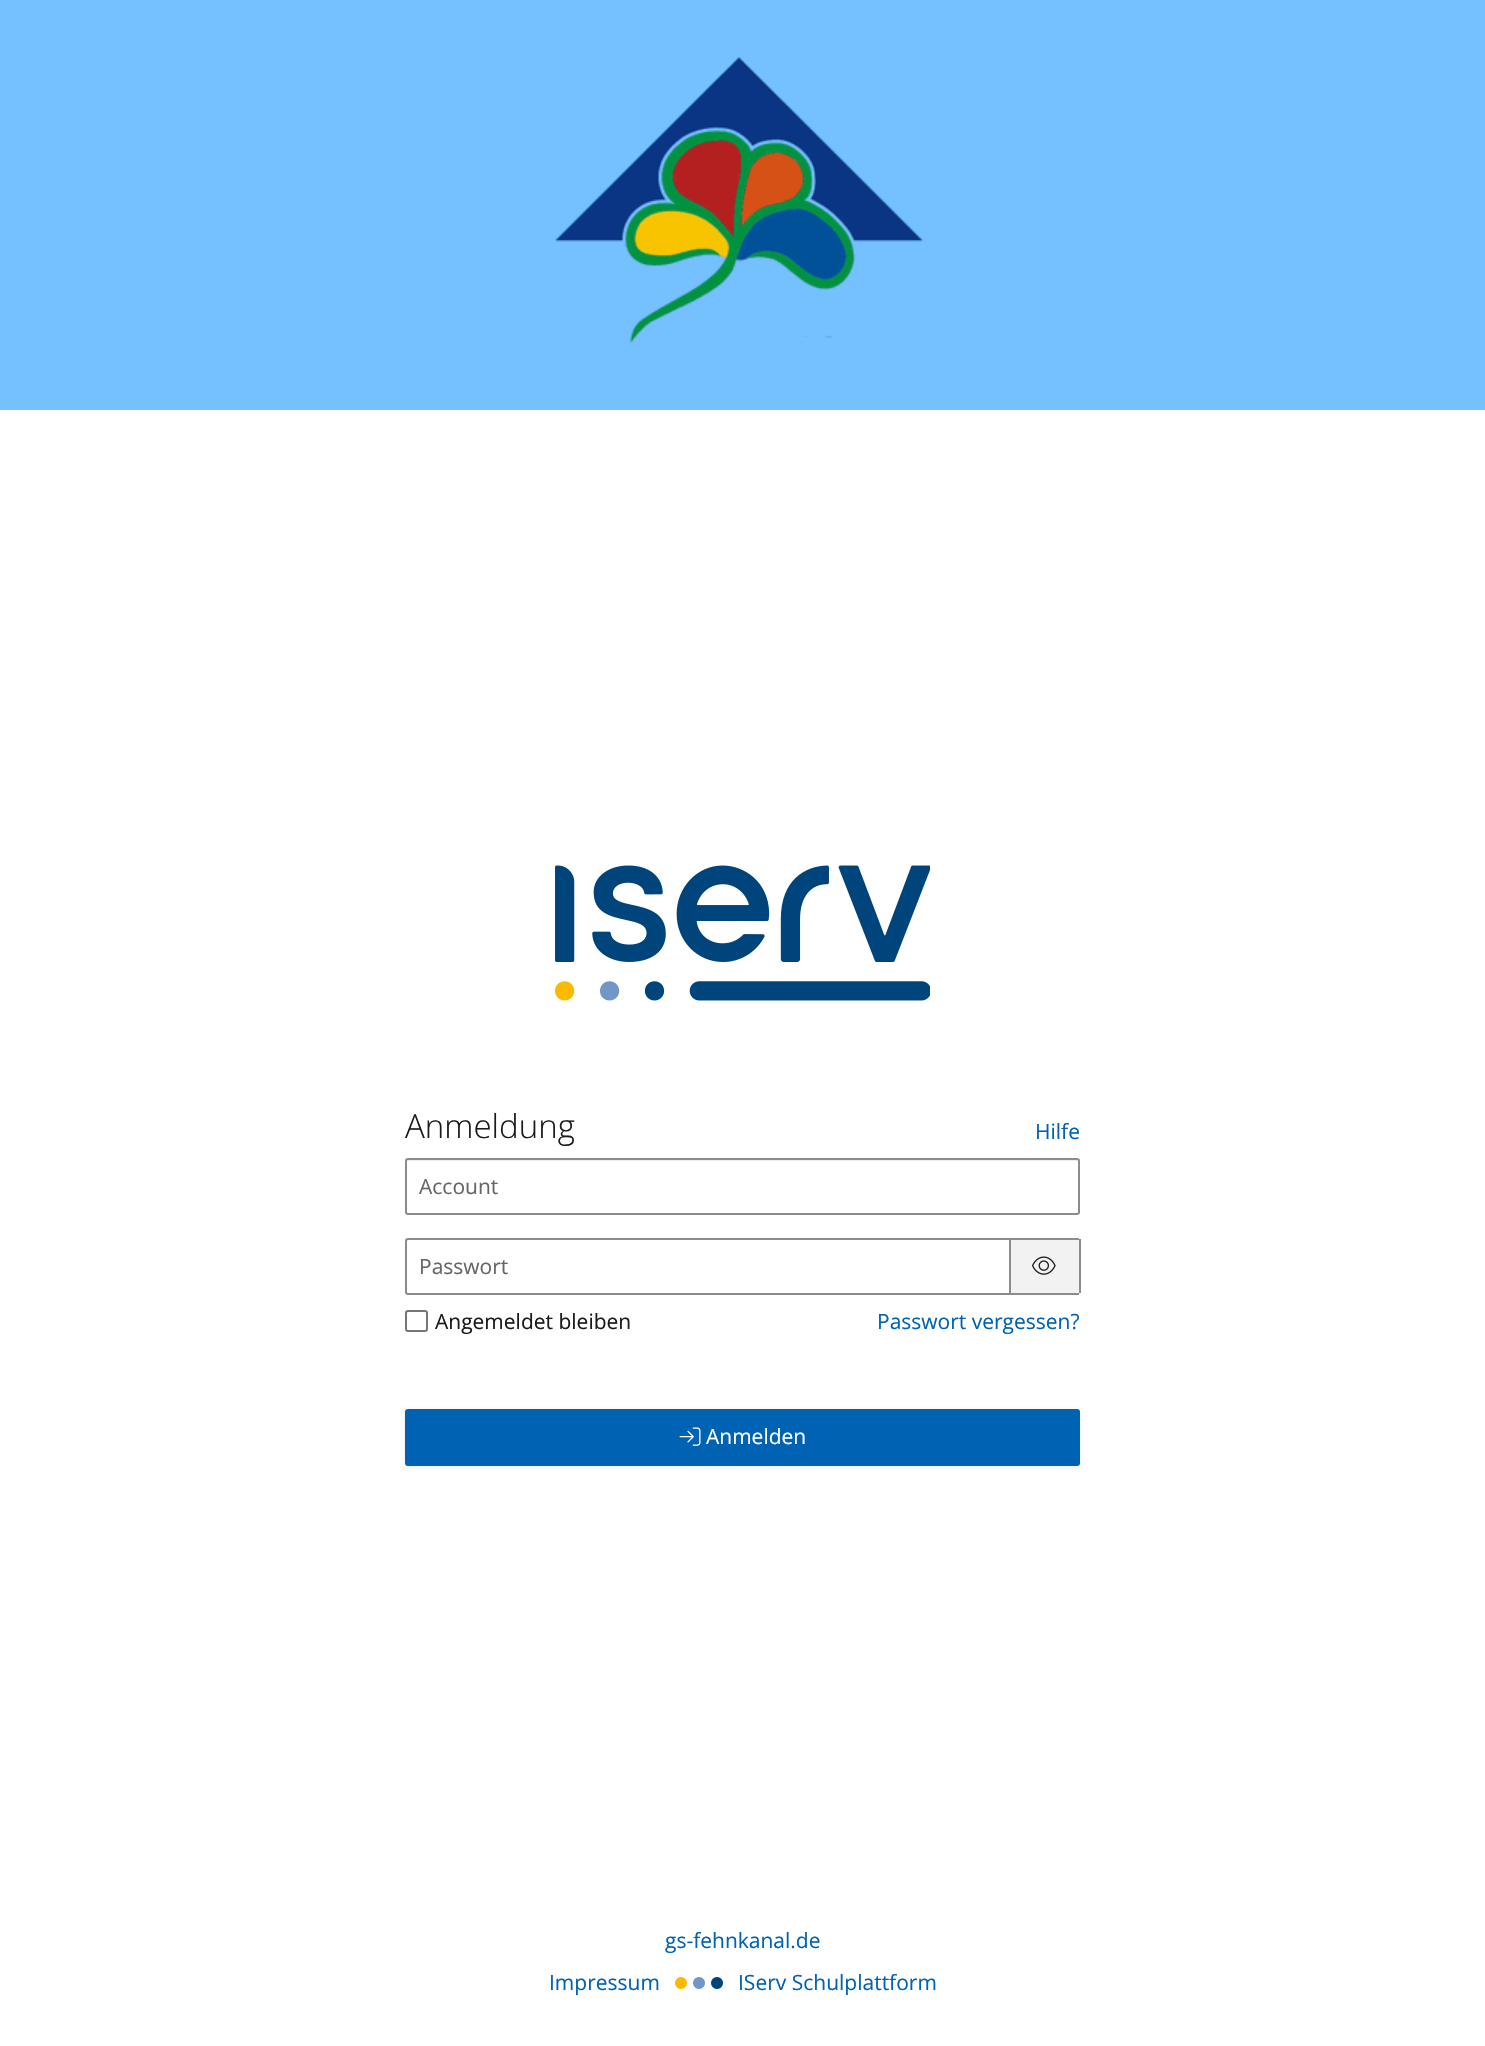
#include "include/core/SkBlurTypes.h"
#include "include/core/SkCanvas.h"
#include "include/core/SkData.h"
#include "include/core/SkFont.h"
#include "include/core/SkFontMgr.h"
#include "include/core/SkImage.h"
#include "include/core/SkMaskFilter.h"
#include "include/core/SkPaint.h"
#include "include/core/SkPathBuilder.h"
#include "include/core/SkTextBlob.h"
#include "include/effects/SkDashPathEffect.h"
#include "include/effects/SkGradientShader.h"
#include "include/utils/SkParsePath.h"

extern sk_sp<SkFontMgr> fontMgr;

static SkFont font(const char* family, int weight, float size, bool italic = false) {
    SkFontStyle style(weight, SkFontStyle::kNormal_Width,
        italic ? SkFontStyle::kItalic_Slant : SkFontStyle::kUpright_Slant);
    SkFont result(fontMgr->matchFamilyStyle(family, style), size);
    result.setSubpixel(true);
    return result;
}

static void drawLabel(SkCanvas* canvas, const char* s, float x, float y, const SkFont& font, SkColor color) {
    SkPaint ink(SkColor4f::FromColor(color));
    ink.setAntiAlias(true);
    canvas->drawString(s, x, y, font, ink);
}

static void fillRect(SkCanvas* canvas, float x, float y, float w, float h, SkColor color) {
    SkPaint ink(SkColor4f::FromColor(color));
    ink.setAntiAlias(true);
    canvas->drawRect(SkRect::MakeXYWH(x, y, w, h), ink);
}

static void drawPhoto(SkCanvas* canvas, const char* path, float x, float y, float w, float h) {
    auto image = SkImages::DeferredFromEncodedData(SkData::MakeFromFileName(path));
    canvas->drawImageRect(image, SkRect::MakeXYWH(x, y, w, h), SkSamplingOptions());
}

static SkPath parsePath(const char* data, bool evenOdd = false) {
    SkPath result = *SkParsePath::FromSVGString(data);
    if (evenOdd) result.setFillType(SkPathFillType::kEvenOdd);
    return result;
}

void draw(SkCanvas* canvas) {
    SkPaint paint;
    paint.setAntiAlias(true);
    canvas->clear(0xFFFFFFFF);
    fillRect(canvas, 0, 0, 1485, 410, 0xFF75C1FF);
    drawPhoto(canvas, "assets/img1.png", 555, 57, 368, 286);
    drawPhoto(canvas, "assets/img2.png", 555, 865, 375, 136);
    SkFont font1 = font("Open Sans", 300, 33);
    drawLabel(canvas, "Anmeldung", 405, 1138, font1, 0xFF1A1A1A);
    SkFont font2 = font("Open Sans", 400, 21);
    drawLabel(canvas, "Hilfe", 1035, 1139, font2, 0xFF0062B3);
    paint.setColor(0xFFECECEC);
    canvas->drawPath(parsePath("M408 1161H1077C1078 1161 1078 1162 1078 1162V1214C1079 1214 1079 1213 1079 1212V1162C1079 1161 1078 1160 1078 1160H408C408 1160 407 1161 407 1161Z"), paint);
    paint.setStroke(true);
    paint.setStrokeWidth(2);
    paint.setColor(0xFF8C8C8C);
    canvas->drawRoundRect(SkRect::MakeXYWH(406, 1159, 673, 55), 2, 2, paint);
    drawLabel(canvas, "Account", 419, 1194, font2, 0xFF666666);
    paint.setStroke(false);
    paint.setColor(0xFFECECEC);
    canvas->drawPath(parsePath("M408 1240H1010V1239H408C407 1239 407 1240 407 1241Z"), paint);
    paint.setStroke(true);
    paint.setColor(0xFF8C8C8C);
    canvas->drawPath(parsePath("M408 1239H1010V1294H408C407 1294 406 1293 406 1292V1241C406 1240 407 1239 408 1239Z"), paint);
    drawLabel(canvas, "Passwort", 419, 1274, font2, 0xFF666666);
    paint.setStroke(false);
    paint.setColor(0xFFF2F2F2);
    canvas->drawPath(parsePath("M1011 1238H1077C1078.5 1238 1080 1239.5 1080 1241V1292C1080 1293.5 1078.5 1295 1077 1295H1011Z"), paint);
    fillRect(canvas, 1011, 1238, 68, 2, 0xFF8C8C8C);
    fillRect(canvas, 1079, 1239, 2, 54, 0xFF8C8C8C);
    fillRect(canvas, 1011, 1293, 68, 2, 0xFF8C8C8C);
    drawPhoto(canvas, "assets/img3.png", 1032, 1256, 24, 19);
    paint.setStroke(true);
    paint.setColor(0xFF767676);
    canvas->drawRoundRect(SkRect::MakeXYWH(406, 1311, 21, 20), 2, 2, paint);
    drawLabel(canvas, "Angemeldet bleiben", 435, 1329, font2, 0xFF1A1A1A);
    drawLabel(canvas, "Passwort vergessen?", 877, 1329, font2, 0xFF0062B3);
    paint.setStroke(false);
    paint.setColor(0x14000000);
    paint.setMaskFilter(SkMaskFilter::MakeBlur(kNormal_SkBlurStyle, 2));
    canvas->drawRoundRect(SkRect::MakeXYWH(405, 1410, 675, 57), 3, 3, paint);
    paint.setMaskFilter(nullptr);
    paint.setColor(0xFF0062B3);
    canvas->drawRoundRect(SkRect::MakeXYWH(406, 1410, 673, 55), 2, 2, paint);
    paint.setStroke(true);
    canvas->drawRoundRect(SkRect::MakeXYWH(406, 1410, 673, 55), 2, 2, paint);
    drawPhoto(canvas, "assets/img4.png", 679, 1427, 22, 19);
    drawLabel(canvas, "Anmelden", 706, 1444, font2, 0xFFFFFFFF);
    drawLabel(canvas, "gs-fehnkanal.de", 665, 1948, font2, 0xFF0062B3);
    drawLabel(canvas, "Impressum", 549, 1990, font2, 0xFF0062B3);
    drawPhoto(canvas, "assets/img5.png", 675, 1977, 12, 12);
    drawPhoto(canvas, "assets/img6.png", 693, 1977, 12, 12);
    drawPhoto(canvas, "assets/img7.png", 711, 1977, 12, 12);
    drawLabel(canvas, "IServ Schulplattform", 738, 1990, font2, 0xFF0062B3);
}
